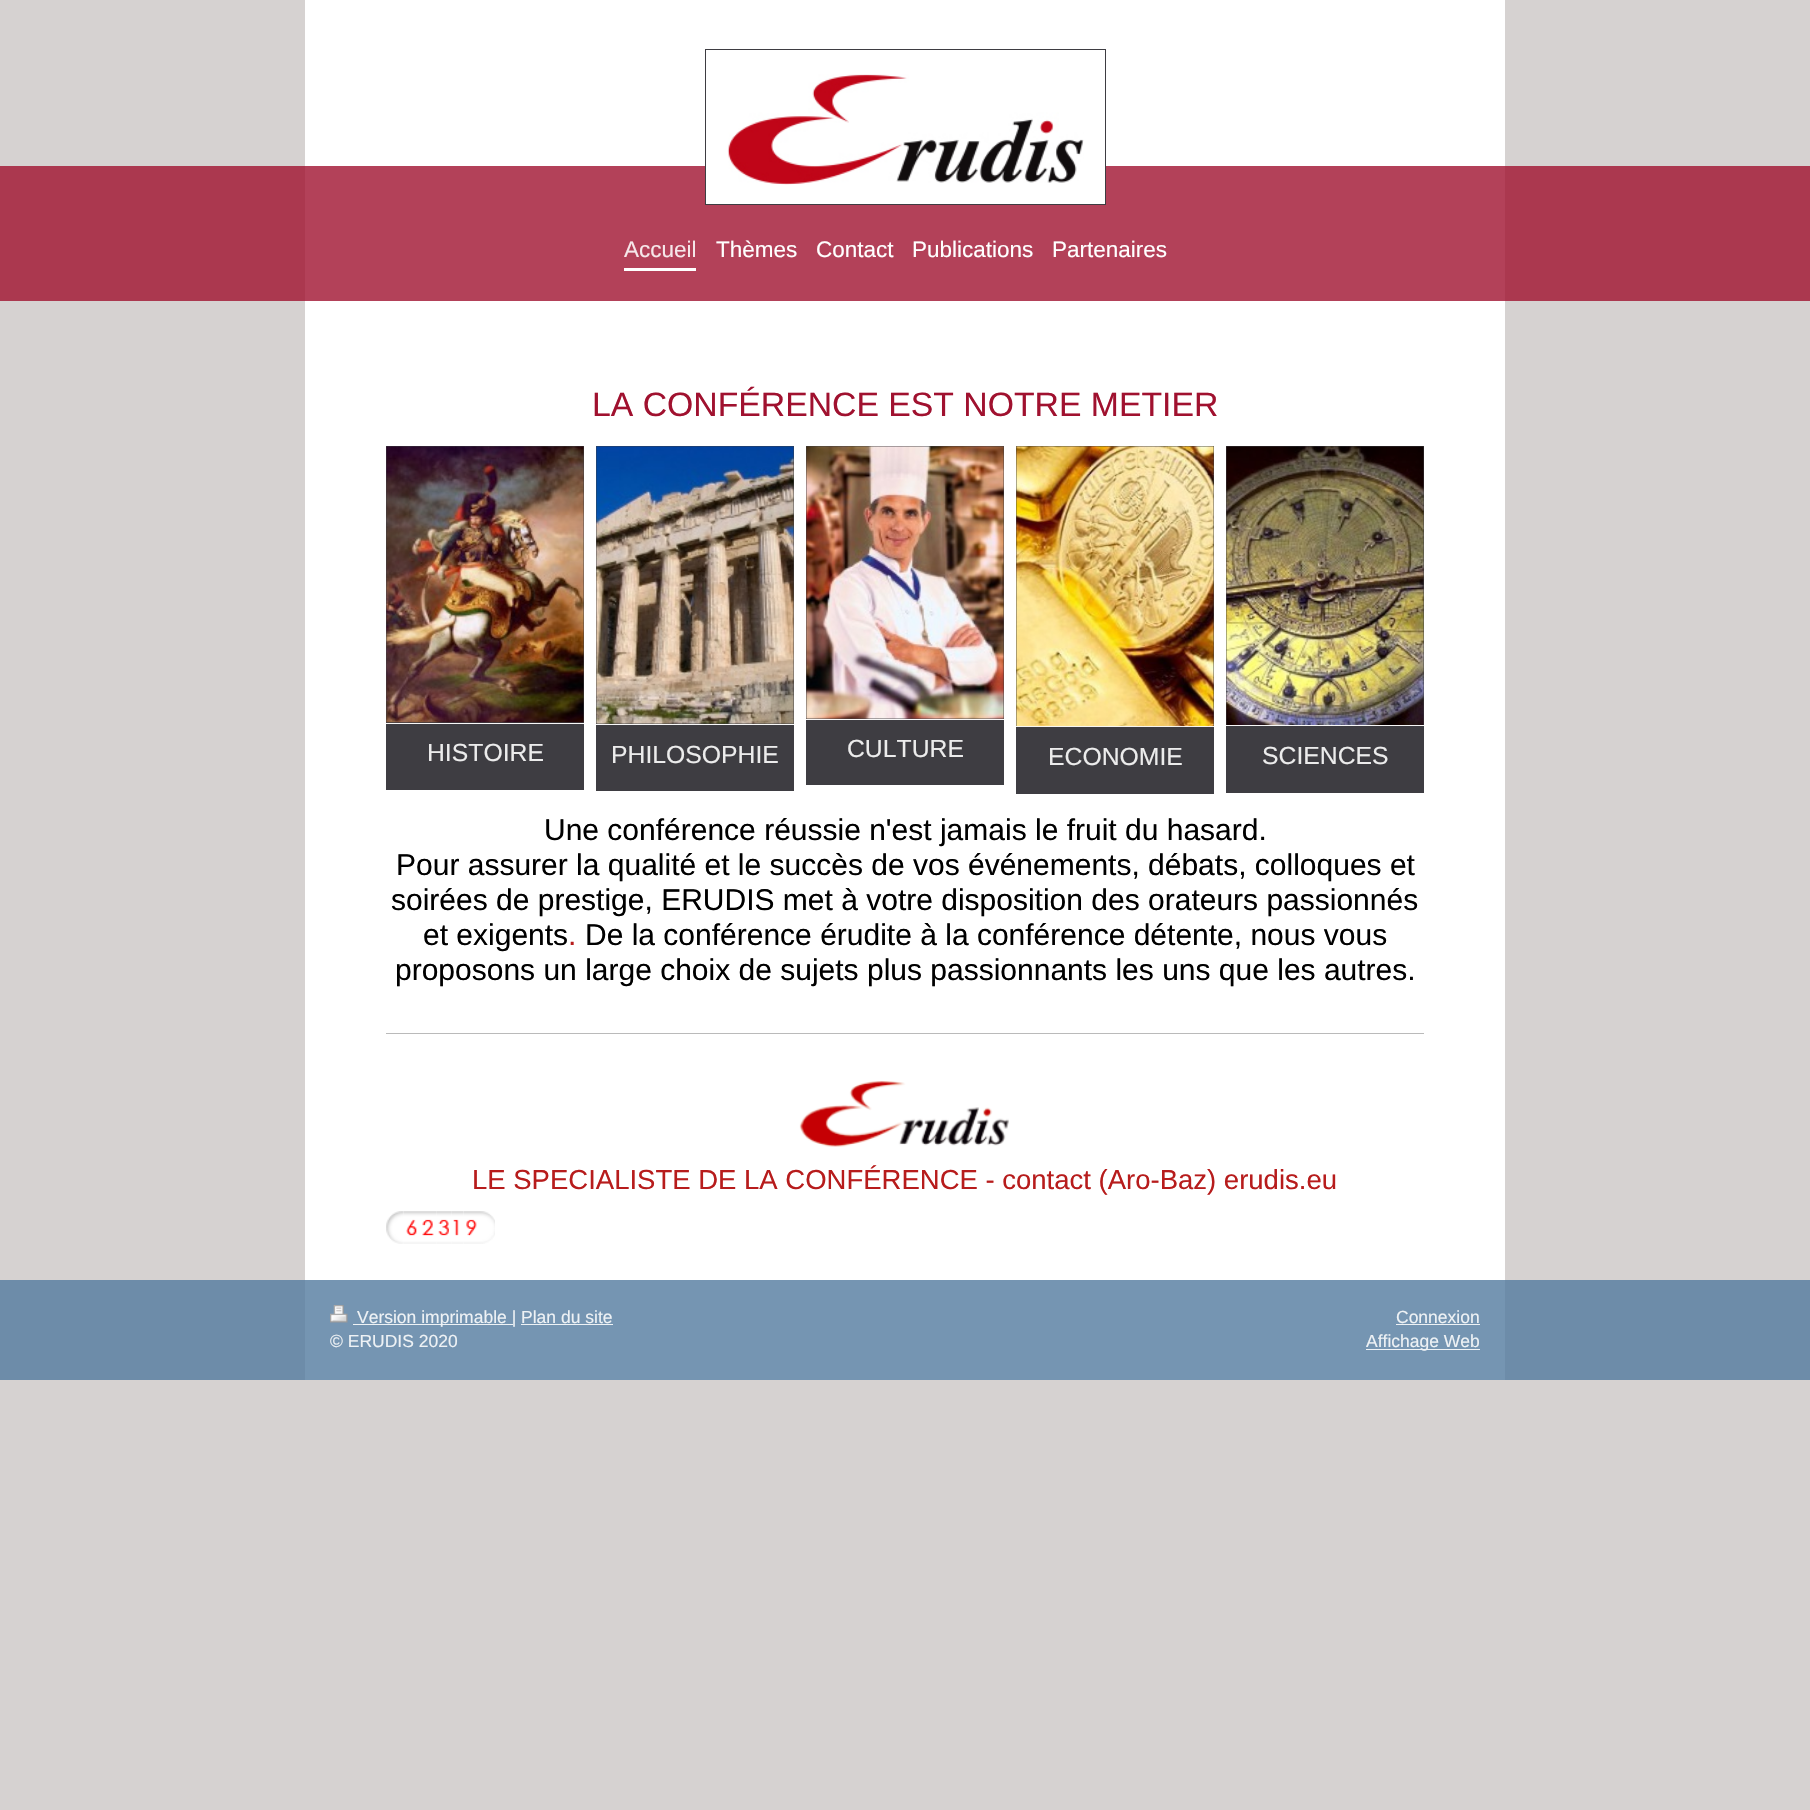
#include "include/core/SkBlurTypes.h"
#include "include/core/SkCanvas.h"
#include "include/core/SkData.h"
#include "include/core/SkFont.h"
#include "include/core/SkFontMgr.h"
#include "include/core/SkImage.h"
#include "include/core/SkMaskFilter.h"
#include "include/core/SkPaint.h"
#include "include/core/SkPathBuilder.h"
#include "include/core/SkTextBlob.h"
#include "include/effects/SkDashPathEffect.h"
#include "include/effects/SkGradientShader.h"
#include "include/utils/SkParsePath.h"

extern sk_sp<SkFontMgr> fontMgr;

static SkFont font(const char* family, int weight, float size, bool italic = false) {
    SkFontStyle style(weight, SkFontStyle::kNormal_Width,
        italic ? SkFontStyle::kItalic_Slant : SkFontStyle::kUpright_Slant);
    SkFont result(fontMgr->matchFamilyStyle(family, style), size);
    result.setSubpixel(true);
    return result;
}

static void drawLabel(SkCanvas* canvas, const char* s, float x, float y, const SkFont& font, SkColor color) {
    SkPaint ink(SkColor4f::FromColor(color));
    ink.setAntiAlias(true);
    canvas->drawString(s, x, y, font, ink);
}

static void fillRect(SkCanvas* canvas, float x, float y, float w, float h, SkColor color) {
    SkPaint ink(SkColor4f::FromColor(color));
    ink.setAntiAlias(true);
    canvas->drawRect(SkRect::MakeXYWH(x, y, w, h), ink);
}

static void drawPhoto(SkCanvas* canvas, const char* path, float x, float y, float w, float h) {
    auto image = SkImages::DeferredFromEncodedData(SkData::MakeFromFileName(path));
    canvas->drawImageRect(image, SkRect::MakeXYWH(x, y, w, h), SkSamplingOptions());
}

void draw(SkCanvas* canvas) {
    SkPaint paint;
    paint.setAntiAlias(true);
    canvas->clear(0xFFD6D2D1);
    fillRect(canvas, 0, 1280, 1810, 100, 0xFF6D8CA9);
    fillRect(canvas, 0, 166, 1810, 135, 0xFFAB384F);
    fillRect(canvas, 305, 0, 1200, 1280, 0xFFFFFFFF);
    fillRect(canvas, 305, 1280, 1200, 100, 0xFF7595B2);
    fillRect(canvas, 305, 166, 1200, 135, 0xFFB34159);
    paint.setStroke(true);
    paint.setStrokeWidth(1);
    paint.setColor(0xFF3E3D42);
    canvas->drawRect(SkRect::MakeXYWH(705.5f, 49.5f, 400, 155), paint);
    fillRect(canvas, 706, 166, 399, 38, 0xFFFFFFFF);
    drawPhoto(canvas, "assets/img1.png", 727, 74, 357, 111);
    fillRect(canvas, 624, 268, 72, 3, 0xFFFFFFFF);
    SkFont font1 = font("Liberation Sans", 400, 22.5f);
    drawLabel(canvas, "Accueil", 624, 257, font1, 0xFFF6E7EA);
    drawLabel(canvas, "Thèmes", 716, 257, font1, 0xFFFFFFFF);
    drawLabel(canvas, "Contact", 816, 257, font1, 0xFFFFFFFF);
    drawLabel(canvas, "Publications", 912, 257, font1, 0xFFFFFFFF);
    drawLabel(canvas, "Partenaires", 1052, 257, font1, 0xFFFFFFFF);
    SkFont font2 = font("Liberation Sans", 400, 33.75f);
    drawLabel(canvas, "LA CONFÉRENCE EST NOTRE METIER", 592, 416, font2, 0xFFA0112F);
    fillRect(canvas, 386, 446, 198, 344, 0xFF3E3D42);
    fillRect(canvas, 386, 723, 198, 1, 0xFFF8F8F8);
    drawPhoto(canvas, "assets/img2.png", 386, 446, 198, 277);
    SkFont font3 = font("Liberation Sans", 400, 24.75f);
    drawLabel(canvas, "HISTOIRE", 427, 761, font3, 0xFFECECEC);
    fillRect(canvas, 596, 446, 198, 345, 0xFF3E3D42);
    fillRect(canvas, 596, 724, 198, 1, 0xFFF8F8F8);
    drawPhoto(canvas, "assets/img3.png", 596, 446, 198, 278);
    drawLabel(canvas, "PHILOSOPHIE", 611, 763, font3, 0xFFECECEC);
    fillRect(canvas, 806, 446, 198, 339, 0xFF3E3D42);
    fillRect(canvas, 806, 719, 198, 1, 0xFFF8F8F8);
    drawPhoto(canvas, "assets/img4.png", 806, 446, 198, 273);
    drawLabel(canvas, "CULTURE", 847, 757, font3, 0xFFECECEC);
    fillRect(canvas, 1016, 446, 198, 348, 0xFF3E3D42);
    fillRect(canvas, 1016, 726, 198, 1, 0xFFF8F8F8);
    drawPhoto(canvas, "assets/img5.png", 1016, 446, 198, 281);
    drawLabel(canvas, "ECONOMIE", 1048, 765, font3, 0xFFECECEC);
    fillRect(canvas, 1226, 446, 198, 347, 0xFF3E3D42);
    fillRect(canvas, 1226, 725, 198, 1, 0xFFF8F8F8);
    drawPhoto(canvas, "assets/img6.png", 1226, 446, 198, 279);
    drawLabel(canvas, "SCIENCES", 1262, 764, font3, 0xFFECECEC);
    SkFont font4 = font("Liberation Sans", 400, 30);
    drawLabel(canvas, "Une conférence réussie n'est jamais le fruit du hasard.", 544, 840, font4, 0xFF000000);
    drawLabel(canvas, "Pour assurer la qualité et le succès de vos événements, débats, colloques et", 396, 875, font4, 0xFF000000);
    drawLabel(canvas, "soirées de prestige, ERUDIS met à votre disposition des orateurs passionnés", 391, 910, font4, 0xFF000000);
    drawLabel(canvas, "et exigents", 423, 945, font4, 0xFF000000);
    drawLabel(canvas, ".", 568, 945, font4, 0xFFB71C1C);
    drawLabel(canvas, "De la conférence érudite à la conférence détente, nous vous", 585, 945, font4, 0xFF000000);
    drawLabel(canvas, "proposons un large choix de sujets plus passionnants les uns que les autres.", 395, 980, font4, 0xFF000000);
    fillRect(canvas, 386, 1033, 1038, 1, 0xFFBABABA);
    drawPhoto(canvas, "assets/img7.png", 799, 1081, 210, 66);
    SkFont font5 = font("Liberation Sans", 400, 27.5f);
    drawLabel(canvas, "LE SPECIALISTE DE LA CONFÉRENCE - contact (Aro-Baz) erudis.eu", 472, 1189, font5, 0xFFB71C1C);
    drawPhoto(canvas, "assets/img8.png", 386, 1211, 18, 33);
    drawPhoto(canvas, "assets/img9.png", 404, 1211, 16, 33);
    drawPhoto(canvas, "assets/img10.png", 420, 1211, 17, 33);
    drawPhoto(canvas, "assets/img11.png", 436, 1211, 16, 33);
    drawPhoto(canvas, "assets/img12.png", 451, 1211, 13, 33);
    drawPhoto(canvas, "assets/img13.png", 464, 1211, 16, 33);
    drawPhoto(canvas, "assets/img14.png", 480, 1211, 15, 33);
    drawPhoto(canvas, "assets/img15.png", 330, 1305, 18, 18);
    fillRect(canvas, 353, 1324, 160, 1, 0xFFEEF2F5);
    SkFont font6 = font("Liberation Sans", 400, 17.5f);
    drawLabel(canvas, "Version imprimable | Plan du site", 357, 1323, font6, 0xFFEEF2F5);
    fillRect(canvas, 521, 1324, 92, 1, 0xFFEEF2F5);
    drawLabel(canvas, "© ERUDIS 2020", 330, 1347, font6, 0xFFEEF2F5);
    drawLabel(canvas, "Connexion", 1396, 1323, font6, 0xFFEEF2F5);
    fillRect(canvas, 1396, 1324, 84, 1, 0xFFEEF2F5);
    fillRect(canvas, 1366, 1349, 114, 1, 0xFFEEF2F5);
    drawLabel(canvas, "Affichage Web", 1366, 1347, font6, 0xFFEEF2F5);
}
